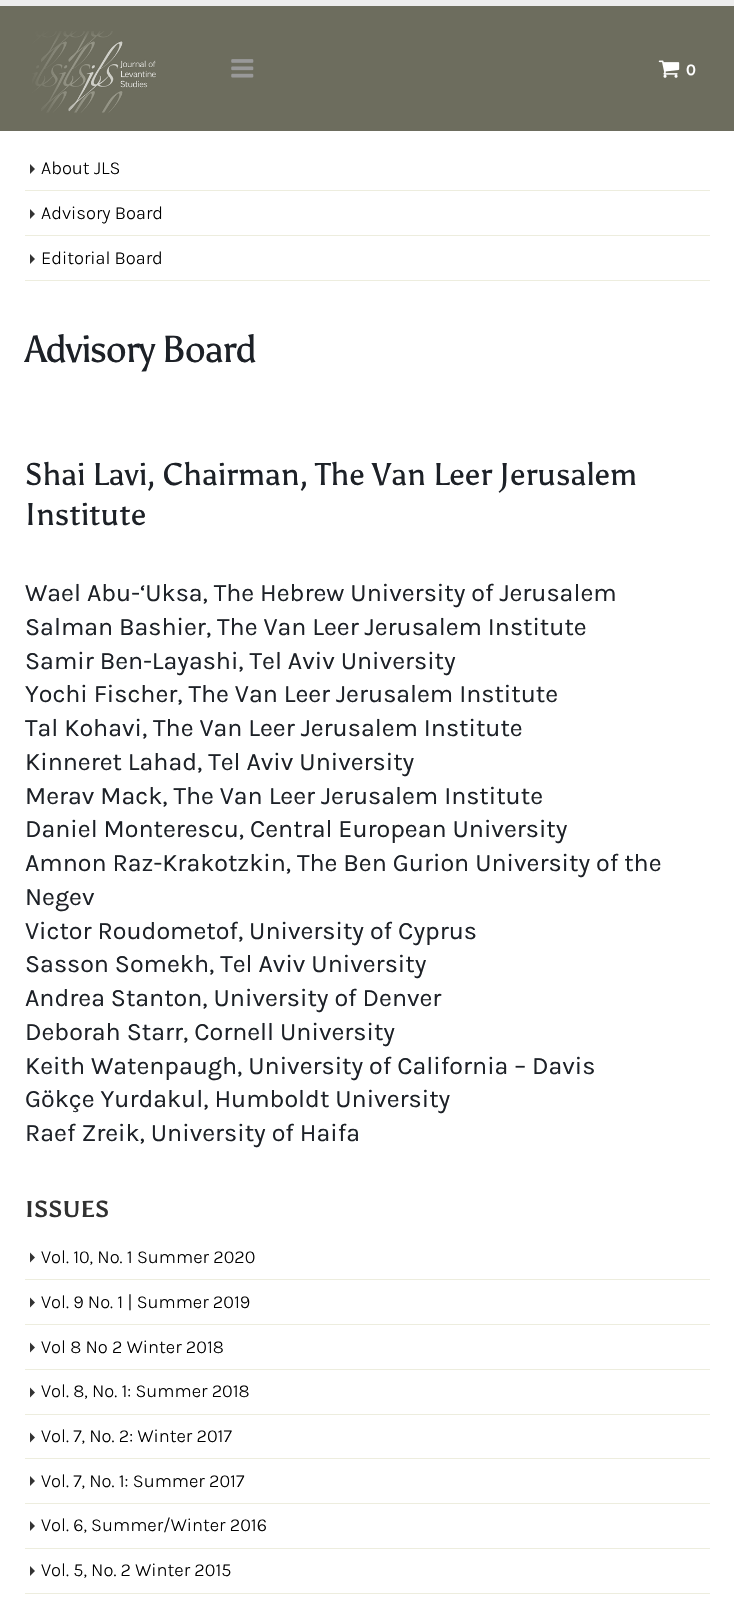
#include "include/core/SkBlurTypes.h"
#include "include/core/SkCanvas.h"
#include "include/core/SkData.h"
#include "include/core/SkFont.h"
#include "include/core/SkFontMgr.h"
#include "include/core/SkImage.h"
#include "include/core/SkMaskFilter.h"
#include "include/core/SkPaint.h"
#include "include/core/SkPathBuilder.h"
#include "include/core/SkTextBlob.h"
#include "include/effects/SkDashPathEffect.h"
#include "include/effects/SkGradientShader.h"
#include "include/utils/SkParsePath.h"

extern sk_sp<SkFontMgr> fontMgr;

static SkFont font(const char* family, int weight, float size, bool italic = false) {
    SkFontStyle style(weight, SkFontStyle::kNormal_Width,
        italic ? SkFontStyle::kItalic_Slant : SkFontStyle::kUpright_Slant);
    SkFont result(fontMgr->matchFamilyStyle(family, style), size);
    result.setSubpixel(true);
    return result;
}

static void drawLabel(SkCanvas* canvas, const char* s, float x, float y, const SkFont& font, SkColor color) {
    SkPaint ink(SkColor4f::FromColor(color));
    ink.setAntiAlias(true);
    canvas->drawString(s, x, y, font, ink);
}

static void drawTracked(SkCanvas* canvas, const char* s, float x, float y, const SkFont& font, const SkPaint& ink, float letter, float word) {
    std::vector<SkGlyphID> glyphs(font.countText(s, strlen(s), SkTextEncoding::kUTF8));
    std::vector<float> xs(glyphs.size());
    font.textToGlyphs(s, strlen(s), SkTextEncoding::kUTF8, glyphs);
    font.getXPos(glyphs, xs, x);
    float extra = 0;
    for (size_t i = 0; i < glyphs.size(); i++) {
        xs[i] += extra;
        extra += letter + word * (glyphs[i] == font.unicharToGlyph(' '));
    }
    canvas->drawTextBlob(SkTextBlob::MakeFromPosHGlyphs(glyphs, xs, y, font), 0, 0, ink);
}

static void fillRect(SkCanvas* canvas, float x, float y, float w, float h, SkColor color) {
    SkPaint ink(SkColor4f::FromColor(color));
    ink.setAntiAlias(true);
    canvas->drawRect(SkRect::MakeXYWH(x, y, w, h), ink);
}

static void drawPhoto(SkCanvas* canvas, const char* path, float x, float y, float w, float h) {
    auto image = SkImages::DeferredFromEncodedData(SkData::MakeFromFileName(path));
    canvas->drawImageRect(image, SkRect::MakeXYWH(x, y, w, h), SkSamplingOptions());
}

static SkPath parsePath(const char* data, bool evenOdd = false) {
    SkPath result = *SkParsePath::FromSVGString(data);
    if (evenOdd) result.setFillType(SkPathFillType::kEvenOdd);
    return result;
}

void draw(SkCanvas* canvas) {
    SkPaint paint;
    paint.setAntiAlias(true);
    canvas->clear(0xFFFFFFFF);
    fillRect(canvas, 0, 6, 734, 125, 0xFF6D6D5E);
    fillRect(canvas, 0, 0, 734, 6, 0xFFEDEDED);
    drawPhoto(canvas, "assets/img1.png", 32, 31, 125, 82);
    drawPhoto(canvas, "assets/img2.png", 231, 59, 23, 19);
    drawPhoto(canvas, "assets/img3.png", 658, 60, 22, 18);
    SkFont font1 = font("Karla", 600, 16);
    drawLabel(canvas, "0", 686, 75, font1, 0xFFFFFFFF);
    fillRect(canvas, 25, 280, 685, 1, 0xFFEDEDDE);
    paint.setColor(0xFF333333);
    canvas->drawPath(parsePath("M30 174V164L35 169Z"), paint);
    SkFont font2 = font("Karla", 300, 18.5f);
    drawLabel(canvas, "About JLS", 41, 174, font2, 0xFF000000);
    fillRect(canvas, 25, 190, 685, 1, 0xFFEDEDDE);
    canvas->drawPath(parsePath("M30 219V209L35 214Z"), paint);
    drawLabel(canvas, "Advisory Board", 41, 219, font2, 0xFF000000);
    fillRect(canvas, 25, 235, 685, 1, 0xFFEDEDDE);
    canvas->drawPath(parsePath("M30 264V254L35 259Z"), paint);
    drawLabel(canvas, "Editorial Board", 41, 264, font2, 0xFF000000);
    SkFont font3 = font("Asul", 400, 37.5f);
    paint.setColor(0xFF1D2127);
    drawTracked(canvas, "Advisory Board", 25, 362, font3, paint, -1.25f, 0);
    SkFont font4 = font("Asul", 400, 31.25f);
    drawLabel(canvas, "Shai Lavi, Chairman, The Van Leer Jerusalem", 25, 485, font4, 0xFF1D2127);
    drawLabel(canvas, "Institute", 25, 525, font4, 0xFF1D2127);
    SkFont font5 = font("Karla", 400, 25);
    drawLabel(canvas, "Wael Abu-‘Uksa, The Hebrew University of Jerusalem", 25, 601, font5, 0xFF1D2127);
    drawLabel(canvas, "Salman Bashier, The Van Leer Jerusalem Institute", 25, 635, font5, 0xFF1D2127);
    drawLabel(canvas, "Samir Ben-Layashi, Tel Aviv University", 25, 669, font5, 0xFF1D2127);
    drawLabel(canvas, "Yochi Fischer, The Van Leer Jerusalem Institute", 25, 702, font5, 0xFF1D2127);
    drawLabel(canvas, "Tal Kohavi, The Van Leer Jerusalem Institute", 25, 736, font5, 0xFF1D2127);
    drawLabel(canvas, "Kinneret Lahad, Tel Aviv University", 25, 770, font5, 0xFF1D2127);
    drawLabel(canvas, "Merav Mack, The Van Leer Jerusalem Institute", 25, 804, font5, 0xFF1D2127);
    drawLabel(canvas, "Daniel Monterescu, Central European University", 25, 837, font5, 0xFF1D2127);
    drawLabel(canvas, "Amnon Raz-Krakotzkin, The Ben Gurion University of the", 25, 871, font5, 0xFF1D2127);
    drawLabel(canvas, "Negev", 25, 905, font5, 0xFF1D2127);
    drawLabel(canvas, "Victor Roudometof, University of Cyprus", 25, 939, font5, 0xFF1D2127);
    drawLabel(canvas, "Sasson Somekh, Tel Aviv University", 25, 972, font5, 0xFF1D2127);
    drawLabel(canvas, "Andrea Stanton, University of Denver", 25, 1006, font5, 0xFF1D2127);
    drawLabel(canvas, "Deborah Starr, Cornell University", 25, 1040, font5, 0xFF1D2127);
    drawLabel(canvas, "Keith Watenpaugh, University of California – Davis", 25, 1074, font5, 0xFF1D2127);
    drawLabel(canvas, "Gökçe Yurdakul, Humboldt University", 25, 1107, font5, 0xFF1D2127);
    drawLabel(canvas, "Raef Zreik, University of Haifa", 25, 1141, font5, 0xFF1D2127);
    SkFont font6 = font("Asul", 700, 23);
    drawLabel(canvas, "ISSUES", 25, 1217, font6, 0xFF313131);
    paint.setColor(0xFF333333);
    canvas->drawPath(parsePath("M30 1262.5V1252.5L35 1257.5Z"), paint);
    drawLabel(canvas, "Vol. 10, No. 1 Summer 2020", 41, 1263, font2, 0xFF000000);
    fillRect(canvas, 25, 1279, 685, 1, 0xFFEDEDDE);
    canvas->drawPath(parsePath("M30 1307.5V1297.5L35 1302.5Z"), paint);
    drawLabel(canvas, "Vol. 9 No. 1 | Summer 2019", 41, 1308, font2, 0xFF000000);
    fillRect(canvas, 25, 1324, 685, 1, 0xFFEDEDDE);
    canvas->drawPath(parsePath("M30 1352.5V1342.5L35 1347.5Z"), paint);
    drawLabel(canvas, "Vol 8 No 2 Winter 2018", 41, 1353, font2, 0xFF000000);
    fillRect(canvas, 25, 1369, 685, 1, 0xFFEDEDDE);
    canvas->drawPath(parsePath("M30 1397.5V1387.5L35 1392.5Z"), paint);
    drawLabel(canvas, "Vol. 8, No. 1: Summer 2018", 41, 1397, font2, 0xFF000000);
    fillRect(canvas, 25, 1414, 685, 1, 0xFFEDEDDE);
    canvas->drawPath(parsePath("M30 1442.5V1432.5L35 1437.5Z"), paint);
    drawLabel(canvas, "Vol. 7, No. 2: Winter 2017", 41, 1442, font2, 0xFF000000);
    fillRect(canvas, 25, 1458, 685, 1, 0xFFEDEDDE);
    canvas->drawPath(parsePath("M30 1486V1476L35 1481Z"), paint);
    drawLabel(canvas, "Vol. 7, No. 1: Summer 2017", 41, 1487, font2, 0xFF000000);
    fillRect(canvas, 25, 1503, 685, 1, 0xFFEDEDDE);
    canvas->drawPath(parsePath("M30 1531V1521L35 1526Z"), paint);
    drawLabel(canvas, "Vol. 6, Summer/Winter 2016", 41, 1531, font2, 0xFF000000);
    fillRect(canvas, 25, 1548, 685, 1, 0xFFEDEDDE);
    canvas->drawPath(parsePath("M30 1576V1566L35 1571Z"), paint);
    drawLabel(canvas, "Vol. 5, No. 2 Winter 2015", 41, 1576, font2, 0xFF000000);
    fillRect(canvas, 25, 1593, 685, 1, 0xFFEDEDDE);
}
